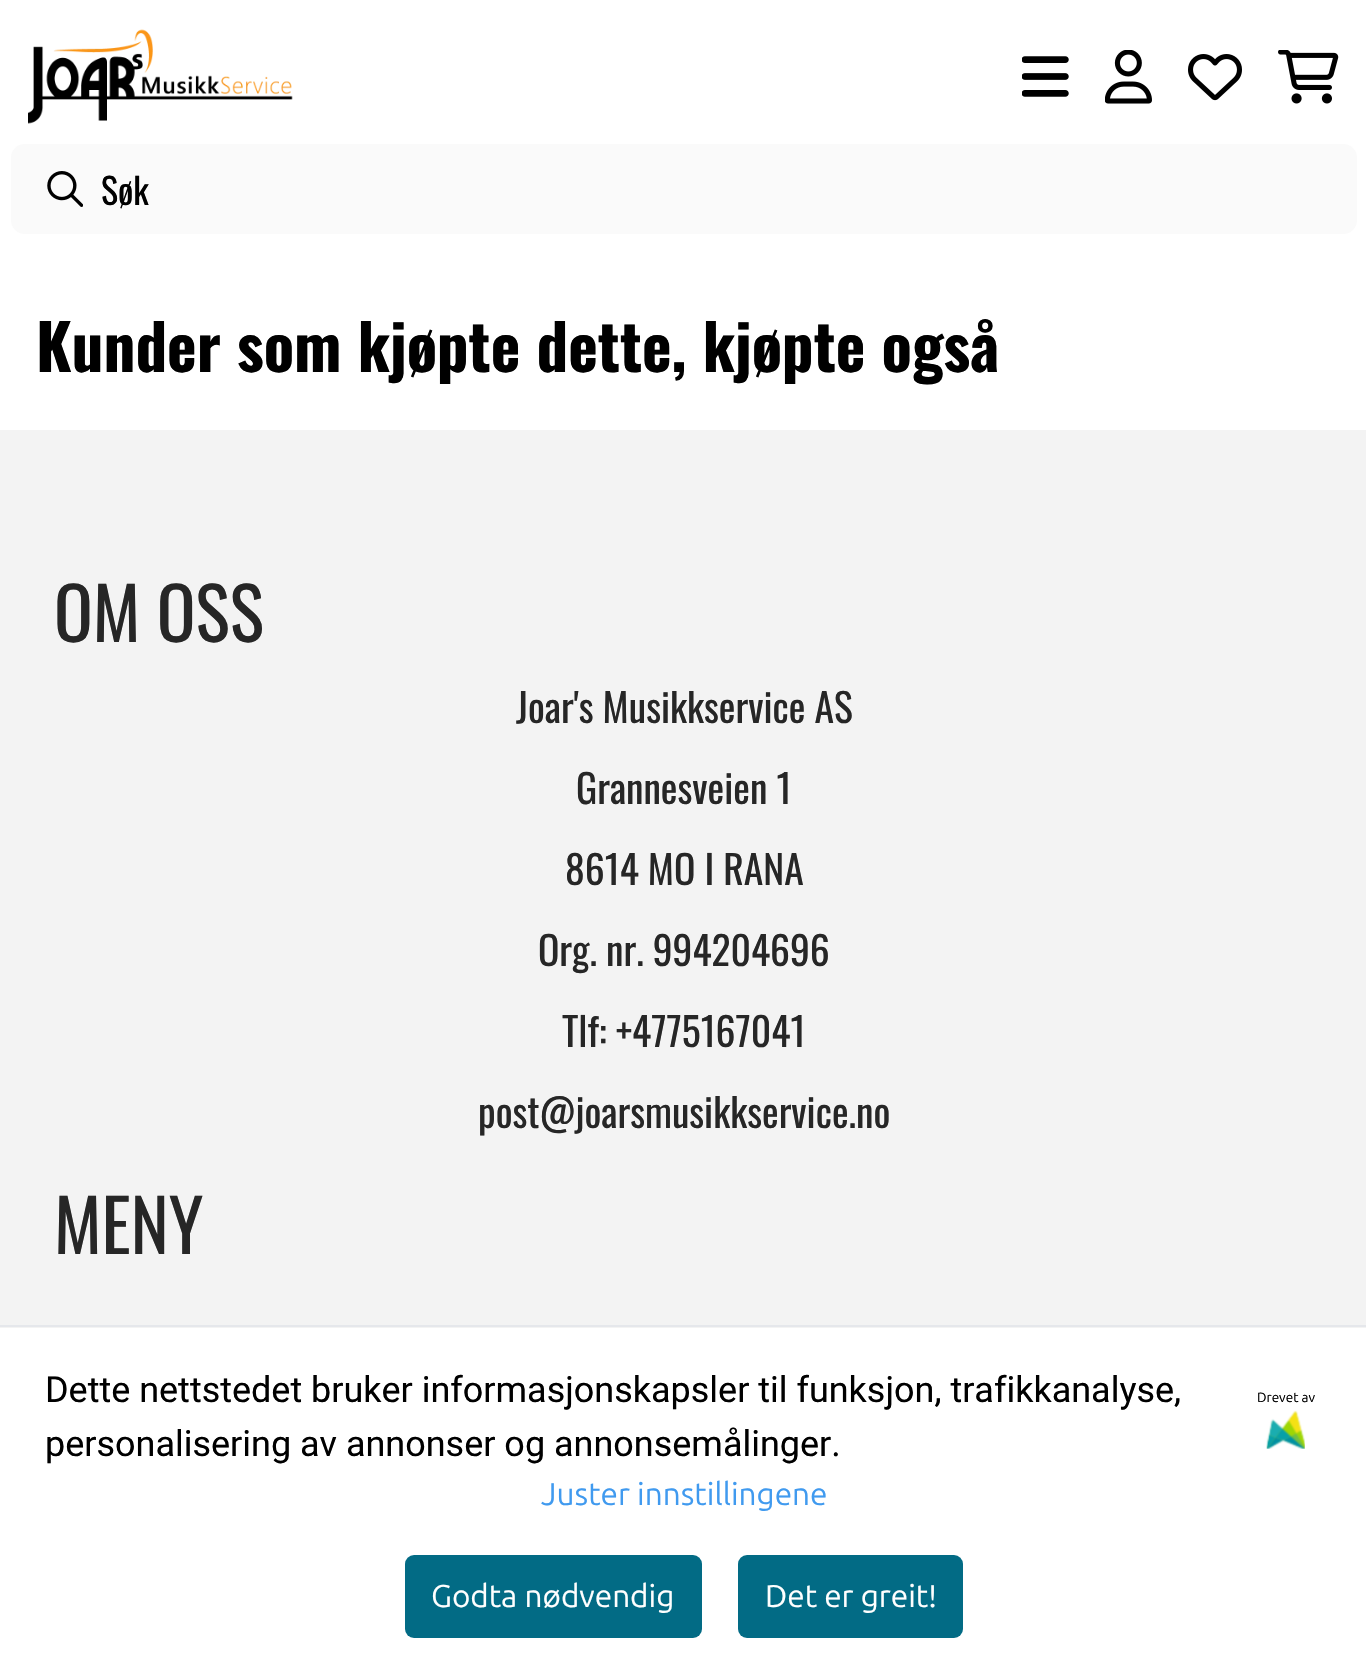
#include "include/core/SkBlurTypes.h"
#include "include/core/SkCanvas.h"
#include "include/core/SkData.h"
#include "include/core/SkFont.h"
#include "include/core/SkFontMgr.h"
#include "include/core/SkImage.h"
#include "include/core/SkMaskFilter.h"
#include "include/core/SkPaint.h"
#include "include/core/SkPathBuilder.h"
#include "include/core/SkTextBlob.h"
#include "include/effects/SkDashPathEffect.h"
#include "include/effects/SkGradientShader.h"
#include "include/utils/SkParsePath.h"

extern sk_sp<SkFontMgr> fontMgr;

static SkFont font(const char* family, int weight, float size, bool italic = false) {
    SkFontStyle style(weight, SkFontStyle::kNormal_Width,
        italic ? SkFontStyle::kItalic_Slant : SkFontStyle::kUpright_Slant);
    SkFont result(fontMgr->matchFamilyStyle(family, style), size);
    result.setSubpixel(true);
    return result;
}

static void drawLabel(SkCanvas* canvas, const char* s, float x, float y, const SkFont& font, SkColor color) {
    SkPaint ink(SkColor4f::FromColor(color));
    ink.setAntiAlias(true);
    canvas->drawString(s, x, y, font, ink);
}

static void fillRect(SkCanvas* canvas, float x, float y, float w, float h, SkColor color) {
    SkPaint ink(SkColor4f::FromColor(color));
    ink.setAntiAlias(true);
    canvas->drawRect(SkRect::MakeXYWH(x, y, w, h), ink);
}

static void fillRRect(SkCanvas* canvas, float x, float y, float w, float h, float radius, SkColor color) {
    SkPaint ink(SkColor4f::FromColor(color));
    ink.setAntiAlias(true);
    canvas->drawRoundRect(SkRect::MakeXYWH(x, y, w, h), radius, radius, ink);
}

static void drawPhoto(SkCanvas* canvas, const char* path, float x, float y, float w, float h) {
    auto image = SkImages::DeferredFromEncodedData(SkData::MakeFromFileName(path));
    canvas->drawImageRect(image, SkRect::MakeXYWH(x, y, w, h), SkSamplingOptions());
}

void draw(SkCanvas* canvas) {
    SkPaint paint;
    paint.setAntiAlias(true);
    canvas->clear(0xFFFFFFFF);
    drawPhoto(canvas, "assets/img1.png", 28, 29, 265, 95);
    drawPhoto(canvas, "assets/img2.png", 1022, 56, 47, 41);
    drawPhoto(canvas, "assets/img3.png", 1105, 50, 47, 54);
    drawPhoto(canvas, "assets/img4.png", 1188, 54, 54, 47);
    drawPhoto(canvas, "assets/img5.png", 1278, 50, 61, 54);
    fillRRect(canvas, 11, 144, 1346, 90, 14, 0xFFFAFAFA);
    drawPhoto(canvas, "assets/img6.png", 47, 171, 36, 36);
    SkFont font1 = font("Oswald", 400, 36);
    drawLabel(canvas, "Søk", 101, 205, font1, 0xFF000000);
    SkFont font2 = font("Oswald", 700, 63);
    drawLabel(canvas, "Kunder som kjøpte dette, kjøpte også", 36, 372, font2, 0xFF000000);
    fillRect(canvas, 0, 430, 1366, 898, 0xFFF3F3F3);
    SkFont font3 = font("Oswald", 400, 72);
    drawLabel(canvas, "OM OSS", 54, 642, font3, 0xFF262626);
    SkFont font4 = font("Oswald", 400, 39.6f);
    drawLabel(canvas, "Joar's Musikkservice AS", 516, 723, font4, 0xFF262626);
    drawLabel(canvas, "Grannesveien 1", 576, 804, font4, 0xFF262626);
    drawLabel(canvas, "8614 MO I RANA", 565, 885, font4, 0xFF262626);
    drawLabel(canvas, "Org. nr. 994204696", 538, 966, font4, 0xFF262626);
    drawLabel(canvas, "Tlf: +4775167041", 562, 1047, font4, 0xFF262626);
    drawLabel(canvas, "post@joarsmusikkservice.no", 478, 1128, font4, 0xFF262626);
    drawLabel(canvas, "MENY", 54, 1254, font3, 0xFF262626);
    fillRect(canvas, 0, 1325, 1366, 2, 0xFFE5E7EB);
    SkFont font5 = font("Roboto", 400, 36);
    drawLabel(canvas, "Dette nettstedet bruker informasjonskapsler til funksjon, trafikkanalyse,", 45, 1402, font5, 0xFF000000);
    drawLabel(canvas, "personalisering av annonser og annonsemålinger.", 45, 1456, font5, 0xFF000000);
    SkFont font6 = font("Ubuntu", 400, 13.5f);
    drawLabel(canvas, "Drevet av", 1257, 1402, font6, 0xFF000000);
    drawPhoto(canvas, "assets/img7.png", 1266, 1410, 39, 39);
    SkFont font7 = font("Ubuntu", 400, 31.5f);
    drawLabel(canvas, "Juster innstillingene", 541, 1505, font7, 0xFF409AEF);
    fillRRect(canvas, 405, 1555, 297, 83, 9, 0xFF026B85);
    drawLabel(canvas, "Godta nødvendig", 431, 1607, font7, 0xFFFFFFFF);
    fillRRect(canvas, 738, 1555, 225, 83, 9, 0xFF026B85);
    drawLabel(canvas, "Det er greit!", 765, 1607, font7, 0xFFFFFFFF);
}
